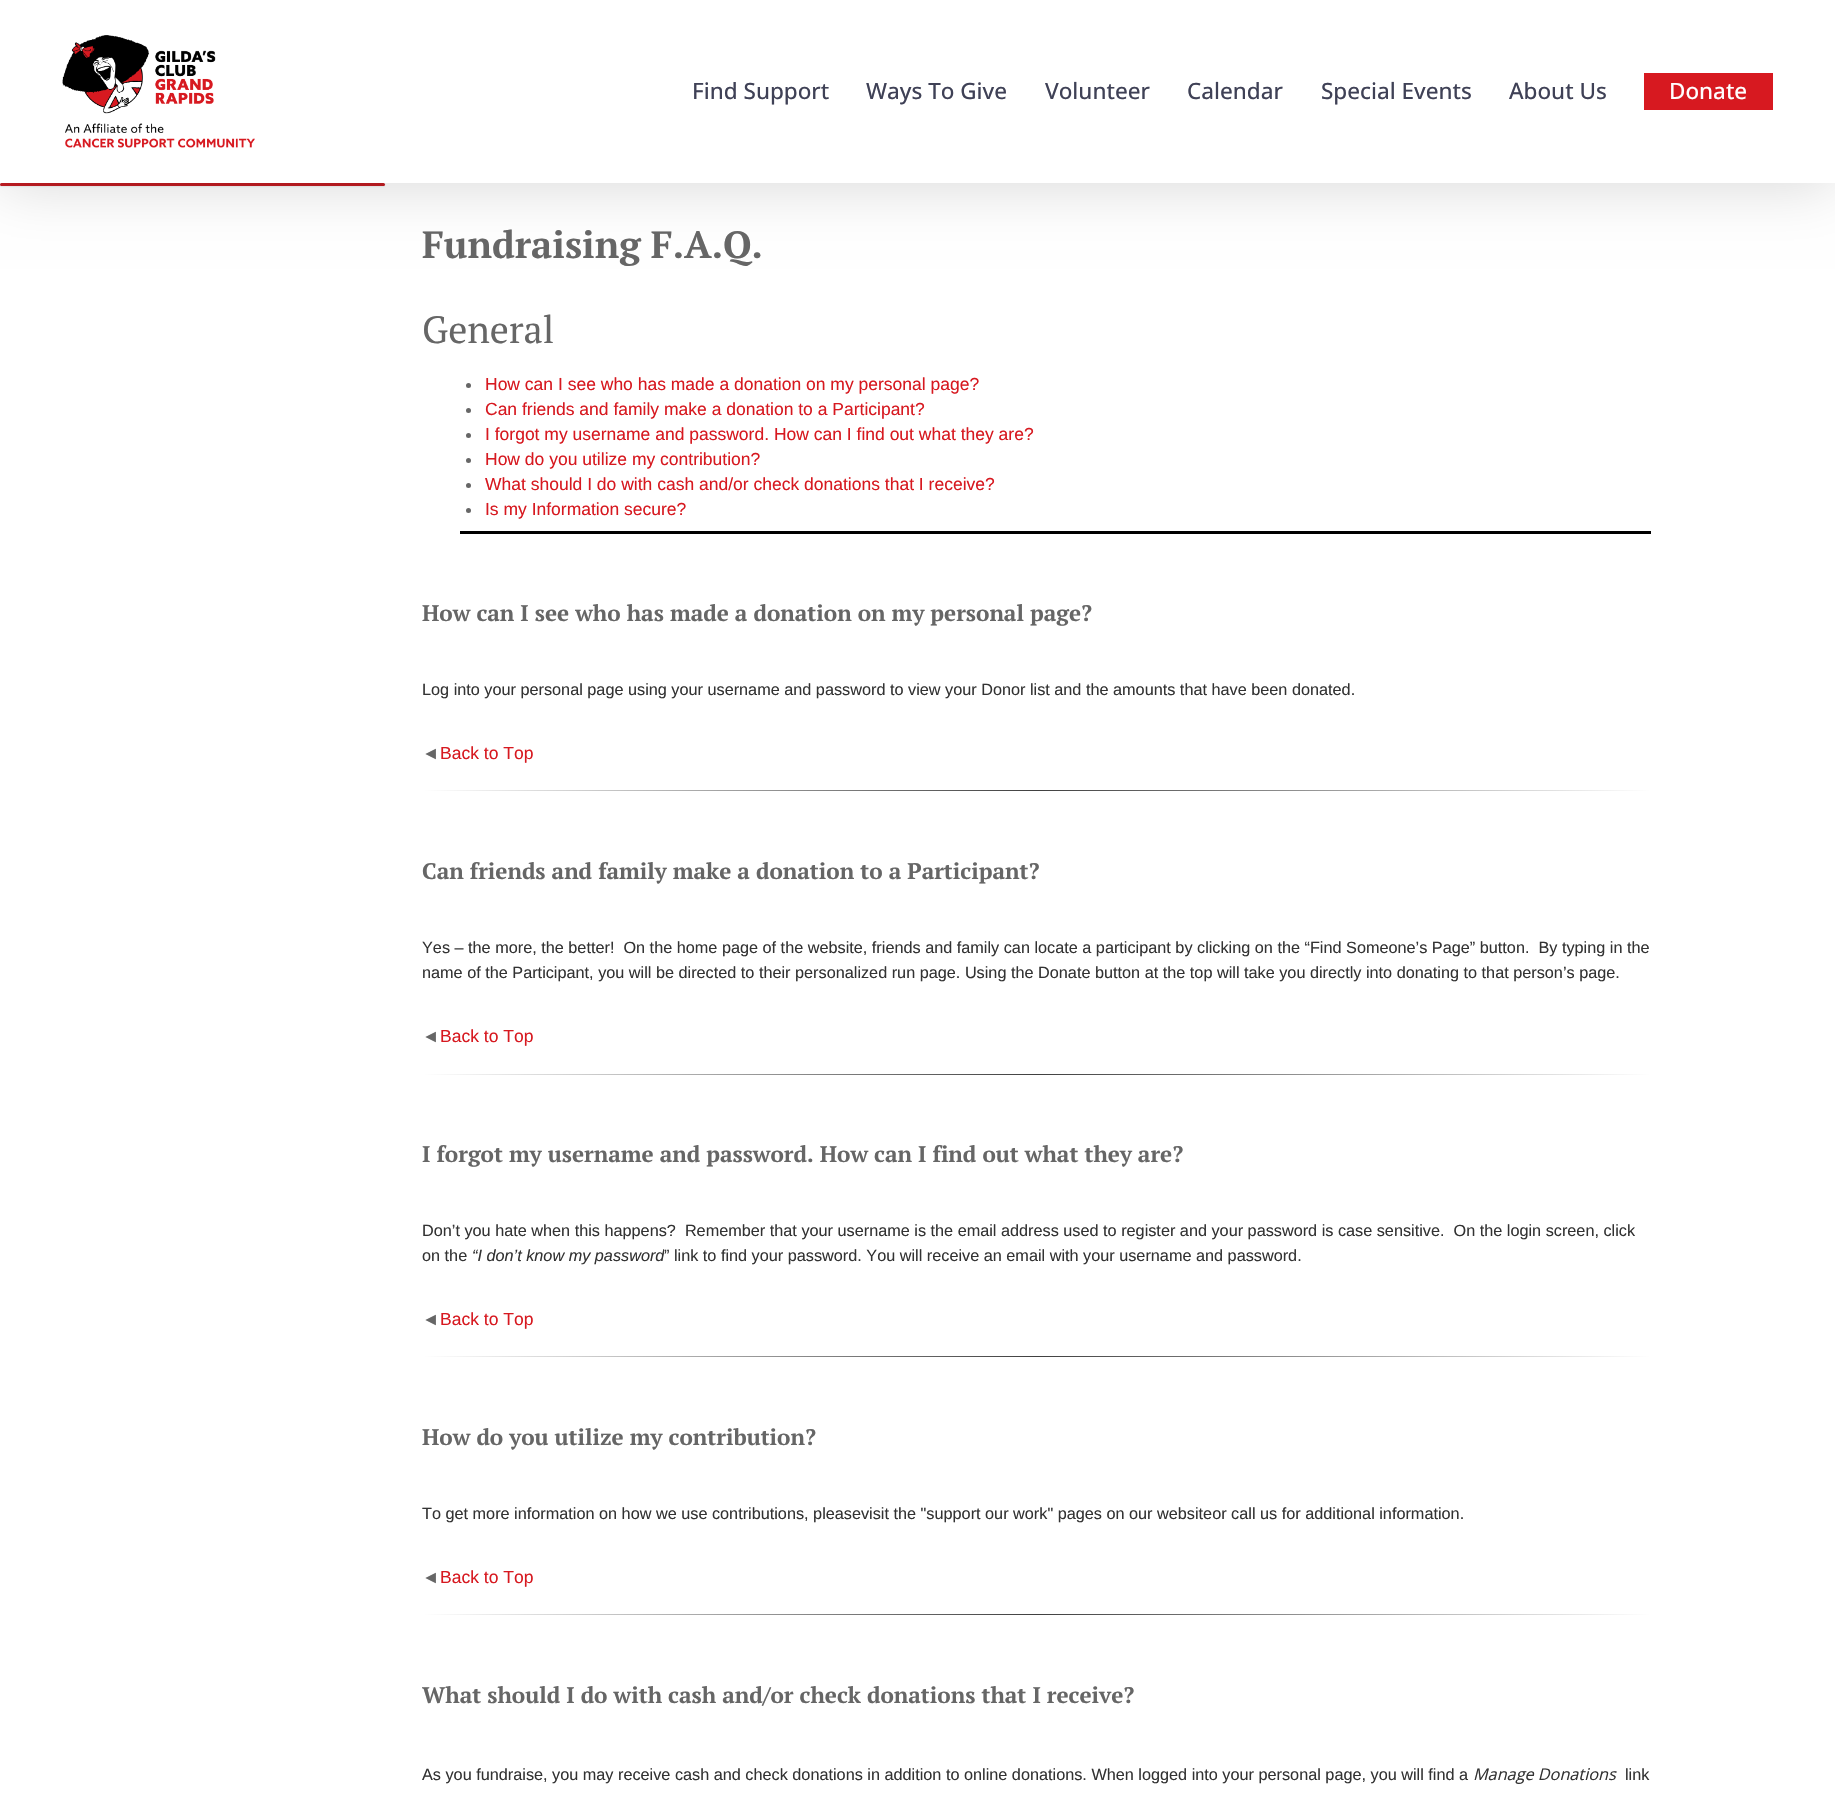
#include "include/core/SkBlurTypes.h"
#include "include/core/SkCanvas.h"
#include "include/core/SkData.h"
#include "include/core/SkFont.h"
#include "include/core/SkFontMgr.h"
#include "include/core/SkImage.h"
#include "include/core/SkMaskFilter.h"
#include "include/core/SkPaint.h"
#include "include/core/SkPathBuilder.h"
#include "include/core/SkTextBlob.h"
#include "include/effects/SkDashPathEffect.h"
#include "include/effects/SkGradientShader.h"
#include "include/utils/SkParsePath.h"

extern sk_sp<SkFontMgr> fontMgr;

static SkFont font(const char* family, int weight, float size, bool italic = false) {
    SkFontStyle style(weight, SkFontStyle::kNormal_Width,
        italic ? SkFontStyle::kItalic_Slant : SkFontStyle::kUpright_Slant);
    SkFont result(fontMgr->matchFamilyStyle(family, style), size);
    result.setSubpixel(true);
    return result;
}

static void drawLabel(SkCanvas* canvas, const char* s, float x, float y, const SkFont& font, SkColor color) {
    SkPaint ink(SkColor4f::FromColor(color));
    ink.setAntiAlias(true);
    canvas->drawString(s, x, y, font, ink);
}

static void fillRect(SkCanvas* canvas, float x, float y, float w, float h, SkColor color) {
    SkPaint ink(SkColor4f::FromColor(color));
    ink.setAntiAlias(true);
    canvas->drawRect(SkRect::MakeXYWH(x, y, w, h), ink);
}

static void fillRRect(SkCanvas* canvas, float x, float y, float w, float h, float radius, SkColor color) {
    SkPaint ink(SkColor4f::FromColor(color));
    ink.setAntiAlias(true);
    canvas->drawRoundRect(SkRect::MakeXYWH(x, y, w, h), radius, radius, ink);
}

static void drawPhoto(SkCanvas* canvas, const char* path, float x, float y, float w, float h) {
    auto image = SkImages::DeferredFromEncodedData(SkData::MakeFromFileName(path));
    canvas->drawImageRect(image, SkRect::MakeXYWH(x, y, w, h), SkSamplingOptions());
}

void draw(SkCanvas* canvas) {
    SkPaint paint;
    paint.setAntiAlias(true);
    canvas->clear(0xFFFFFFFF);
    paint.setColor(0x0D000000);
    paint.setMaskFilter(SkMaskFilter::MakeBlur(kNormal_SkBlurStyle, 0.5f));
    canvas->drawRoundRect(SkRect::MakeXYWH(0, 184, 385, 3), 1.5f, 1.5f, paint);
    paint.setMaskFilter(nullptr);
    fillRRect(canvas, 0, 183, 385, 3, 1.5f, 0xFFC11C22);
    paint.setColor(0x26000000);
    paint.setMaskFilter(SkMaskFilter::MakeBlur(kNormal_SkBlurStyle, 28));
    canvas->drawRect(SkRect::MakeXYWH(0, 4, 1835, 182), paint);
    paint.setMaskFilter(nullptr);
    fillRect(canvas, 0, 0, 1835, 183, 0xFFFFFFFF);
    drawPhoto(canvas, "assets/img1.png", 62, 35, 193, 113);
    SkFont font1 = font("Open Sans", 500, 22.5f);
    drawLabel(canvas, "Find Support", 692, 99, font1, 0xFF3F4156);
    drawLabel(canvas, "Ways To Give", 866, 99, font1, 0xFF3F4156);
    drawLabel(canvas, "Volunteer", 1045, 99, font1, 0xFF3F4156);
    drawLabel(canvas, "Calendar", 1187, 99, font1, 0xFF3F4156);
    drawLabel(canvas, "Special Events", 1321, 99, font1, 0xFF3F4156);
    drawLabel(canvas, "About Us", 1509, 99, font1, 0xFF3F4156);
    fillRect(canvas, 1644, 73, 129, 37, 0xFFD71920);
    drawLabel(canvas, "Donate", 1669, 99, font1, 0xFFFFFFFF);
    SkFont font2 = font("PT Serif", 700, 38);
    drawLabel(canvas, "Fundraising F.A.Q.", 422, 258, font2, 0xFF666666);
    SkFont font3 = font("PT Serif", 400, 38);
    drawLabel(canvas, "General", 422, 343, font3, 0xFF666666);
    fillRect(canvas, 460, 531, 1191, 3, 0xFF000000);
    paint.setColor(0xFF666666);
    canvas->drawCircle(468.5f, 385.5f, 2.5f, paint);
    SkFont font4 = font("Liberation Sans", 400, 17.5f);
    drawLabel(canvas, "How can I see who has made a donation on my personal page?", 485, 390, font4, 0xFFD71920);
    canvas->drawCircle(468.5f, 410.5f, 2.5f, paint);
    drawLabel(canvas, "Can friends and family make a donation to a Participant?", 485, 415, font4, 0xFFD71920);
    canvas->drawCircle(468.5f, 435.5f, 2.5f, paint);
    drawLabel(canvas, "I forgot my username and password. How can I find out what they are?", 485, 440, font4, 0xFFD71920);
    canvas->drawCircle(468.5f, 460.5f, 2.5f, paint);
    drawLabel(canvas, "How do you utilize my contribution?", 485, 465, font4, 0xFFD71920);
    canvas->drawCircle(468.5f, 485.5f, 2.5f, paint);
    drawLabel(canvas, "What should I do with cash and/or check donations that I receive?", 485, 490, font4, 0xFFD71920);
    canvas->drawCircle(468.5f, 510.5f, 2.5f, paint);
    drawLabel(canvas, "Is my Information secure?", 485, 515, font4, 0xFFD71920);
    SkFont font5 = font("PT Serif", 700, 22.5f);
    drawLabel(canvas, "How can I see who has made a donation on my personal page?", 422, 621, font5, 0xFF666666);
    SkFont font6 = font("Liberation Sans", 400, 16.25f);
    drawLabel(canvas, "Log into your personal page using your username and password to view your Donor list and the amounts that have been donated.", 422, 695, font6, 0xFF333333);
    drawLabel(canvas, "◄", 422, 759, font4, 0xFF666666);
    drawLabel(canvas, "Back to Top", 440, 759, font4, 0xFFD71920);
    {
        const SkColor colors[] = {0xFFFFFFFF, 0xFF404040, 0xFFFFFFFF};
        const float stops[] = {0, 0.5f, 1};
        const SkPoint ends[] = {{423, 791}, {1651, 791}};
        paint.setShader(SkGradientShader::MakeLinear(ends, colors, stops, 3, SkTileMode::kClamp));
        paint.setAlpha(255);
    }
    canvas->drawRect(SkRect::MakeXYWH(423, 790, 1228, 1), paint);
    drawLabel(canvas, "Can friends and family make a donation to a Participant?", 422, 879, font5, 0xFF666666);
    drawLabel(canvas, "Yes – the more, the better!  On the home page of the website, friends and family can locate a participant by clicking on the “Find Someone’s Page” button.  By typing in the", 422, 953, font6, 0xFF333333);
    drawLabel(canvas, "name of the Participant, you will be directed to their personalized run page. Using the Donate button at the top will take you directly into donating to that person’s page.", 422, 978, font6, 0xFF333333);
    drawLabel(canvas, "◄", 422, 1042, font4, 0xFF666666);
    drawLabel(canvas, "Back to Top", 440, 1042, font4, 0xFFD71920);
    {
        const SkColor colors[] = {0xFFFFFFFF, 0xFF404040, 0xFFFFFFFF};
        const float stops[] = {0, 0.5f, 1};
        const SkPoint ends[] = {{423, 1074}, {1651, 1074}};
        paint.setShader(SkGradientShader::MakeLinear(ends, colors, stops, 3, SkTileMode::kClamp));
        paint.setAlpha(255);
    }
    canvas->drawRect(SkRect::MakeXYWH(423, 1074, 1228, 1), paint);
    drawLabel(canvas, "I forgot my username and password. How can I find out what they are?", 422, 1162, font5, 0xFF666666);
    drawLabel(canvas, "Don’t you hate when this happens?  Remember that your username is the email address used to register and your password is case sensitive.  On the login screen, click", 422, 1236, font6, 0xFF333333);
    drawLabel(canvas, "on the", 422, 1261, font6, 0xFF333333);
    SkFont font7 = font("Liberation Sans", 400, 16.25f, true);
    drawLabel(canvas, "“I don’t know my password", 472, 1261, font7, 0xFF333333);
    fillRect(canvas, 664, 1249, 1, 4, 0xFFFFFFFF);
    drawLabel(canvas, "” link to find your password. You will receive an email with your username and password.", 664, 1261, font6, 0xFF333333);
    drawLabel(canvas, "◄", 422, 1325, font4, 0xFF666666);
    drawLabel(canvas, "Back to Top", 440, 1325, font4, 0xFFD71920);
    {
        const SkColor colors[] = {0xFFFFFFFF, 0xFF404040, 0xFFFFFFFF};
        const float stops[] = {0, 0.5f, 1};
        const SkPoint ends[] = {{423, 1357}, {1651, 1357}};
        paint.setShader(SkGradientShader::MakeLinear(ends, colors, stops, 3, SkTileMode::kClamp));
        paint.setAlpha(255);
    }
    canvas->drawRect(SkRect::MakeXYWH(423, 1356, 1228, 1), paint);
    drawLabel(canvas, "How do you utilize my contribution?", 422, 1445, font5, 0xFF666666);
    drawLabel(canvas, "To get more information on how we use contributions, pleasevisit the \"support our work\" pages on our websiteor call us for additional information.", 422, 1519, font6, 0xFF333333);
    drawLabel(canvas, "◄", 422, 1583, font4, 0xFF666666);
    drawLabel(canvas, "Back to Top", 440, 1583, font4, 0xFFD71920);
    {
        const SkColor colors[] = {0xFFFFFFFF, 0xFF404040, 0xFFFFFFFF};
        const float stops[] = {0, 0.5f, 1};
        const SkPoint ends[] = {{423, 1614}, {1651, 1614}};
        paint.setShader(SkGradientShader::MakeLinear(ends, colors, stops, 3, SkTileMode::kClamp));
        paint.setAlpha(255);
    }
    canvas->drawRect(SkRect::MakeXYWH(423, 1614, 1228, 1), paint);
    drawLabel(canvas, "What should I do with cash and/or check donations that I receive?", 422, 1703, font5, 0xFF666666);
    drawLabel(canvas, "As you fundraise, you may receive cash and check donations in addition to online donations. When logged into your personal page, you will find a", 422, 1780, font6, 0xFF333333);
    SkFont font8 = font("Open Sans", 400, 16.25f, true);
    drawLabel(canvas, "Manage Donations", 1473, 1780, font8, 0xFF333333);
    drawLabel(canvas, "link", 1625, 1780, font6, 0xFF333333);
}
